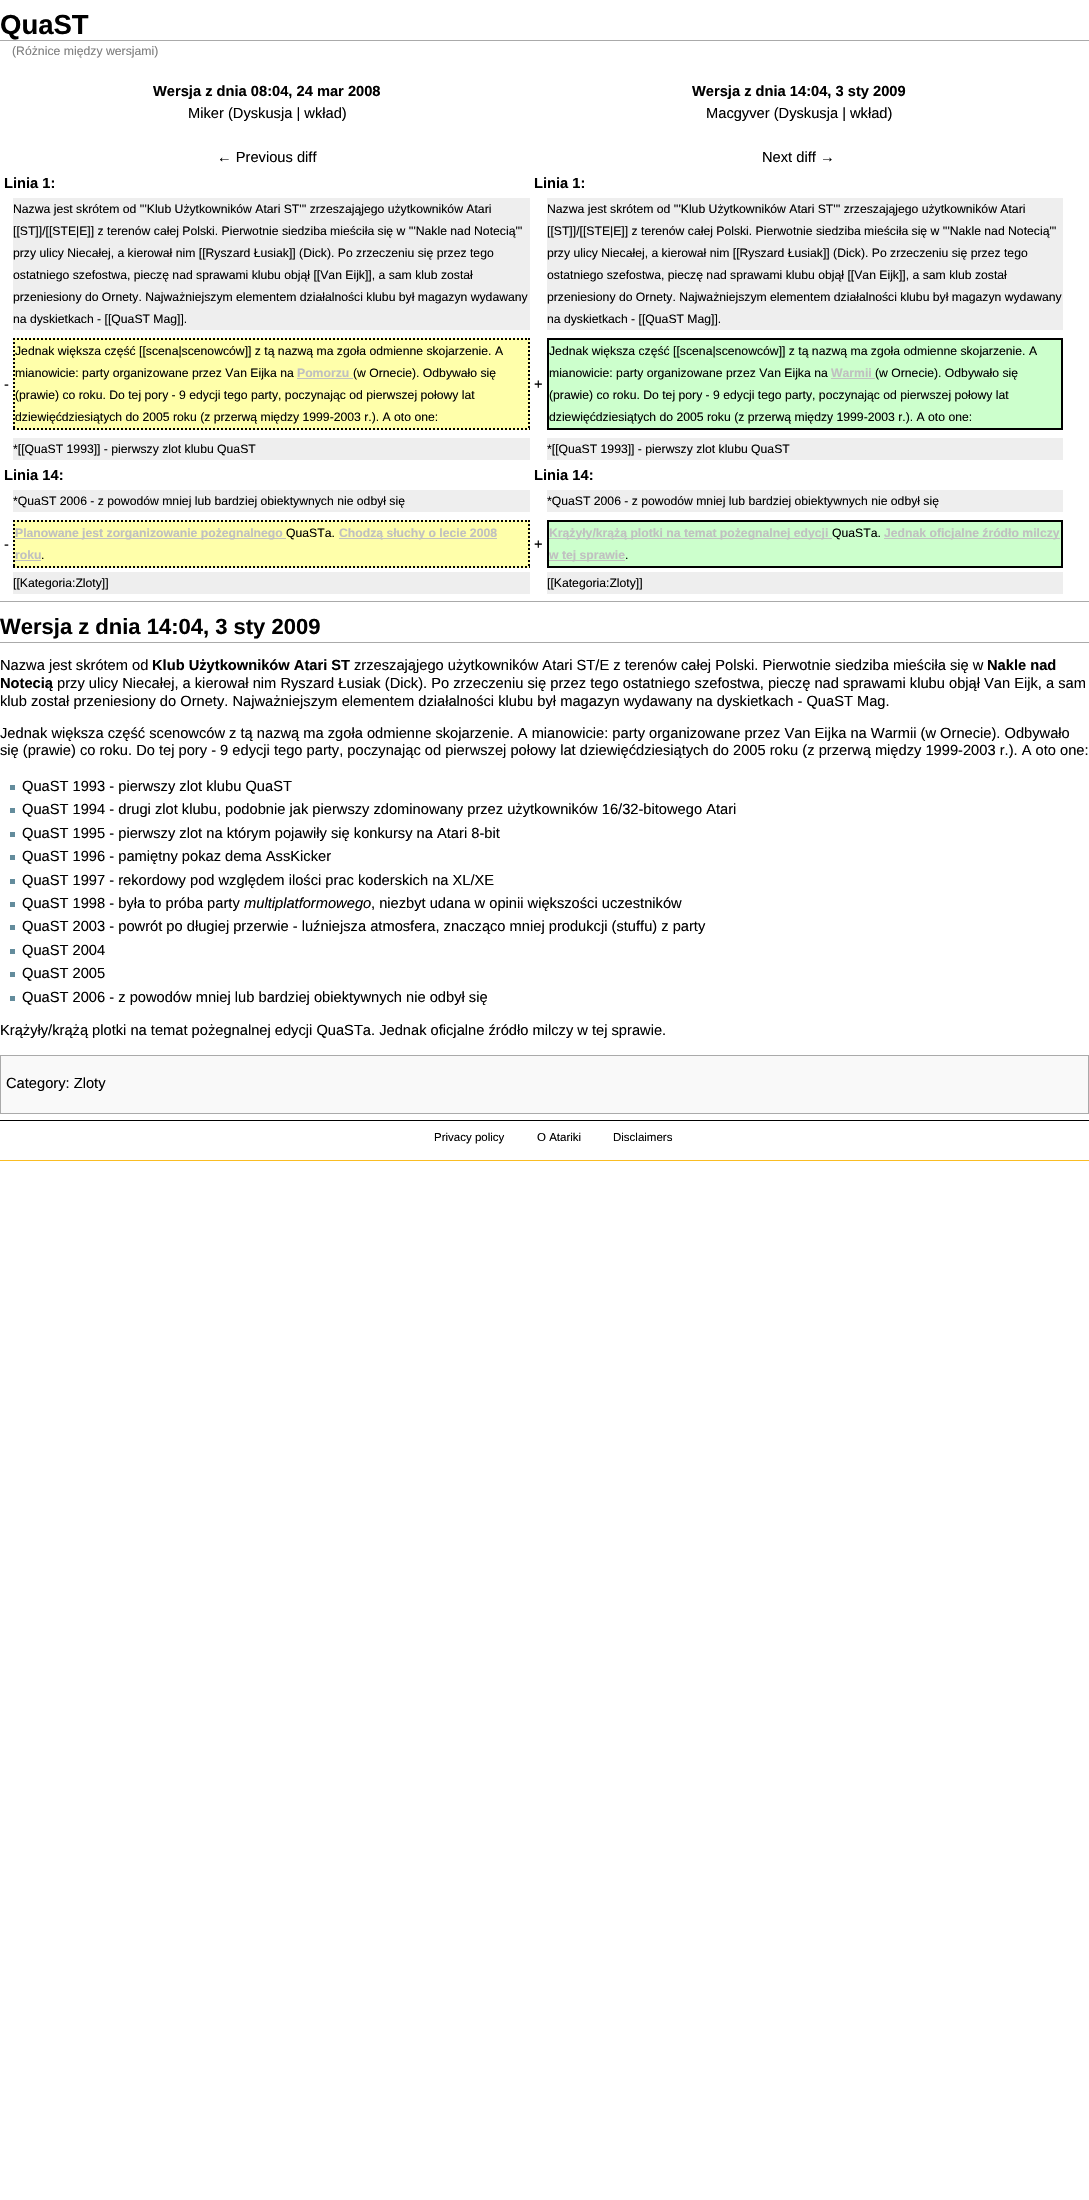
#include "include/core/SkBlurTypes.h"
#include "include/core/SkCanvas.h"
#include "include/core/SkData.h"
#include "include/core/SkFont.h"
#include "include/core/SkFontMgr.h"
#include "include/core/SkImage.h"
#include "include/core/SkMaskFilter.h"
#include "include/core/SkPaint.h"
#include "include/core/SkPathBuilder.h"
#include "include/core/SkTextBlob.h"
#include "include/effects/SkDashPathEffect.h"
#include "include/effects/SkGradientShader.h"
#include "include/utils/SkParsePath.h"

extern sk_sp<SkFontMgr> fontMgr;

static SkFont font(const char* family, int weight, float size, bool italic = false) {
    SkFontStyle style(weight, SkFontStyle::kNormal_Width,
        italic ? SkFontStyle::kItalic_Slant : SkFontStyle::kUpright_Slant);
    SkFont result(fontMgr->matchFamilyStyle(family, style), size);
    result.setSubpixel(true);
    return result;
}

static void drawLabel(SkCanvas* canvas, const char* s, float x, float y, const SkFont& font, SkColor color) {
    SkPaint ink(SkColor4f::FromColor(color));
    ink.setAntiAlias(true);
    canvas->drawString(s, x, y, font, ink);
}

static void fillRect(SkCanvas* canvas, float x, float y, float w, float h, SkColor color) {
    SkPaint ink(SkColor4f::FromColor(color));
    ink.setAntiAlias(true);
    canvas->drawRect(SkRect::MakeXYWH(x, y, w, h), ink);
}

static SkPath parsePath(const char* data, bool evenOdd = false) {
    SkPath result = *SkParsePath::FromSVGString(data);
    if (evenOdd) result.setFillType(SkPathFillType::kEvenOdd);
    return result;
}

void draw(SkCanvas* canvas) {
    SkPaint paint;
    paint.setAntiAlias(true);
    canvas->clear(0xFFFFFFFF);
    fillRect(canvas, 0, 40, 1089, 1, 0xFFAAAAAA);
    SkFont font1 = font("Liberation Sans", 700, 27.5f);
    drawLabel(canvas, "QuaST", 0, 34, font1, 0xFF000000);
    SkFont font2 = font("Liberation Sans", 400, 12.25f);
    drawLabel(canvas, "(Różnice między wersjami)", 12, 55, font2, 0xFF7D7D7D);
    SkFont font3 = font("Liberation Sans", 700, 14.67f);
    drawLabel(canvas, "Wersja z dnia 08:04, 24 mar 2008", 153, 96, font3, 0xFF000000);
    SkFont font4 = font("Liberation Sans", 400, 14.67f);
    drawLabel(canvas, "Miker (Dyskusja | wkład)", 188, 118, font4, 0xFF000000);
    drawLabel(canvas, "← Previous diff", 217, 162, font4, 0xFF000000);
    drawLabel(canvas, "Wersja z dnia 14:04, 3 sty 2009", 692, 96, font3, 0xFF000000);
    drawLabel(canvas, "Macgyver (Dyskusja | wkład)", 706, 118, font4, 0xFF000000);
    drawLabel(canvas, "Next diff →", 762, 162, font4, 0xFF000000);
    drawLabel(canvas, "Linia 1:", 4, 188, font3, 0xFF000000);
    drawLabel(canvas, "Linia 1:", 534, 188, font3, 0xFF000000);
    fillRect(canvas, 13, 198, 517, 132, 0xFFEEEEEE);
    SkFont font5 = font("Liberation Sans", 400, 12.2f);
    drawLabel(canvas, "Nazwa jest skrótem od '''Klub Użytkowników Atari ST''' zrzeszająjego użytkowników Atari", 13, 213, font5, 0xFF000000);
    drawLabel(canvas, "[[ST]]/[[STE|E]] z terenów całej Polski. Pierwotnie siedziba mieściła się w '''Nakle nad Notecią'''", 13, 235, font5, 0xFF000000);
    drawLabel(canvas, "przy ulicy Niecałej, a kierował nim [[Ryszard Łusiak]] (Dick). Po zrzeczeniu się przez tego", 13, 257, font5, 0xFF000000);
    drawLabel(canvas, "ostatniego szefostwa, pieczę nad sprawami klubu objął [[Van Eijk]], a sam klub został", 13, 279, font5, 0xFF000000);
    drawLabel(canvas, "przeniesiony do Ornety. Najważniejszym elementem działalności klubu był magazyn wydawany", 13, 301, font5, 0xFF000000);
    drawLabel(canvas, "na dyskietkach - [[QuaST Mag]].", 13, 323, font5, 0xFF000000);
    fillRect(canvas, 547, 198, 516, 132, 0xFFEEEEEE);
    drawLabel(canvas, "Nazwa jest skrótem od '''Klub Użytkowników Atari ST''' zrzeszająjego użytkowników Atari", 547, 213, font5, 0xFF000000);
    drawLabel(canvas, "[[ST]]/[[STE|E]] z terenów całej Polski. Pierwotnie siedziba mieściła się w '''Nakle nad Notecią'''", 547, 235, font5, 0xFF000000);
    drawLabel(canvas, "przy ulicy Niecałej, a kierował nim [[Ryszard Łusiak]] (Dick). Po zrzeczeniu się przez tego", 547, 257, font5, 0xFF000000);
    drawLabel(canvas, "ostatniego szefostwa, pieczę nad sprawami klubu objął [[Van Eijk]], a sam klub został", 547, 279, font5, 0xFF000000);
    drawLabel(canvas, "przeniesiony do Ornety. Najważniejszym elementem działalności klubu był magazyn wydawany", 547, 301, font5, 0xFF000000);
    drawLabel(canvas, "na dyskietkach - [[QuaST Mag]].", 547, 323, font5, 0xFF000000);
    drawLabel(canvas, "-", 4, 389, font4, 0xFF000000);
    fillRect(canvas, 13, 338, 517, 92, 0xFFFFFFAA);
    paint.setStroke(true);
    paint.setStrokeWidth(2);
    paint.setColor(0xFF000000);
    paint.setPathEffect(SkDashPathEffect::Make({{2, 2}}, 0));
    canvas->drawPath(parsePath("M13 339H530"), paint);
    paint.setPathEffect(nullptr);
    paint.setPathEffect(SkDashPathEffect::Make({{2, 2}}, 0));
    canvas->drawPath(parsePath("M529 338V430"), paint);
    paint.setPathEffect(nullptr);
    paint.setPathEffect(SkDashPathEffect::Make({{2, 2}}, 0));
    canvas->drawPath(parsePath("M13 429H530"), paint);
    paint.setPathEffect(nullptr);
    paint.setPathEffect(SkDashPathEffect::Make({{2, 2}}, 0));
    canvas->drawPath(parsePath("M14 338V430"), paint);
    paint.setPathEffect(nullptr);
    drawLabel(canvas, "Jednak większa część [[scena|scenowców]] z tą nazwą ma zgoła odmienne skojarzenie. A", 15, 355, font5, 0xFF000000);
    drawLabel(canvas, "mianowicie: party organizowane przez Van Eijka na", 15, 377, font5, 0xFF000000);
    SkFont font6 = font("Liberation Sans", 700, 12.2f);
    drawLabel(canvas, "Pomorzu", 297, 377, font6, 0xFFC0C0C0);
    fillRect(canvas, 297, 378, 56, 1, 0xFFC0C0C0);
    drawLabel(canvas, "(w Ornecie). Odbywało się", 353, 377, font5, 0xFF000000);
    drawLabel(canvas, "(prawie) co roku. Do tej pory - 9 edycji tego party, poczynając od pierwszej połowy lat", 15, 399, font5, 0xFF000000);
    drawLabel(canvas, "dziewięćdziesiątych do 2005 roku (z przerwą między 1999-2003 r.). A oto one:", 15, 421, font5, 0xFF000000);
    drawLabel(canvas, "+", 534, 389, font4, 0xFF000000);
    paint.setStroke(false);
    paint.setColor(0xFFCCFFCC);
    canvas->drawRect(SkRect::MakeXYWH(548, 339, 514, 90), paint);
    paint.setStroke(true);
    paint.setColor(0xFF000000);
    canvas->drawRect(SkRect::MakeXYWH(548, 339, 514, 90), paint);
    drawLabel(canvas, "Jednak większa część [[scena|scenowców]] z tą nazwą ma zgoła odmienne skojarzenie. A", 549, 355, font5, 0xFF000000);
    drawLabel(canvas, "mianowicie: party organizowane przez Van Eijka na", 549, 377, font5, 0xFF000000);
    drawLabel(canvas, "Warmii", 831, 377, font6, 0xFFC0C0C0);
    fillRect(canvas, 831, 378, 44, 1, 0xFFC0C0C0);
    drawLabel(canvas, "(w Ornecie). Odbywało się", 875, 377, font5, 0xFF000000);
    drawLabel(canvas, "(prawie) co roku. Do tej pory - 9 edycji tego party, poczynając od pierwszej połowy lat", 549, 399, font5, 0xFF000000);
    drawLabel(canvas, "dziewięćdziesiątych do 2005 roku (z przerwą między 1999-2003 r.). A oto one:", 549, 421, font5, 0xFF000000);
    fillRect(canvas, 13, 438, 517, 22, 0xFFEEEEEE);
    drawLabel(canvas, "*[[QuaST 1993]] - pierwszy zlot klubu QuaST", 13, 453, font5, 0xFF000000);
    fillRect(canvas, 547, 438, 516, 22, 0xFFEEEEEE);
    drawLabel(canvas, "*[[QuaST 1993]] - pierwszy zlot klubu QuaST", 547, 453, font5, 0xFF000000);
    drawLabel(canvas, "Linia 14:", 4, 480, font3, 0xFF000000);
    drawLabel(canvas, "Linia 14:", 534, 480, font3, 0xFF000000);
    fillRect(canvas, 13, 490, 517, 22, 0xFFEEEEEE);
    drawLabel(canvas, "*QuaST 2006 - z powodów mniej lub bardziej obiektywnych nie odbył się", 13, 505, font5, 0xFF000000);
    fillRect(canvas, 547, 490, 516, 22, 0xFFEEEEEE);
    drawLabel(canvas, "*QuaST 2006 - z powodów mniej lub bardziej obiektywnych nie odbył się", 547, 505, font5, 0xFF000000);
    drawLabel(canvas, "-", 4, 549, font4, 0xFF000000);
    fillRect(canvas, 13, 520, 517, 48, 0xFFFFFFAA);
    paint.setPathEffect(SkDashPathEffect::Make({{2, 2}}, 0));
    canvas->drawPath(parsePath("M13 521H530"), paint);
    paint.setPathEffect(nullptr);
    paint.setPathEffect(SkDashPathEffect::Make({{2, 2}}, 0));
    canvas->drawPath(parsePath("M529 520V568"), paint);
    paint.setPathEffect(nullptr);
    paint.setPathEffect(SkDashPathEffect::Make({{2, 2}}, 0));
    canvas->drawPath(parsePath("M13 567H530"), paint);
    paint.setPathEffect(nullptr);
    paint.setPathEffect(SkDashPathEffect::Make({{2, 2}}, 0));
    canvas->drawPath(parsePath("M14 520V568"), paint);
    paint.setPathEffect(nullptr);
    fillRect(canvas, 15, 538, 271, 1, 0xFFC0C0C0);
    drawLabel(canvas, "Planowane jest zorganizowanie pożegnalnego", 15, 537, font6, 0xFFC0C0C0);
    drawLabel(canvas, "QuaSTa.", 286, 537, font5, 0xFF000000);
    fillRect(canvas, 339, 538, 158, 1, 0xFFC0C0C0);
    drawLabel(canvas, "Chodzą słuchy o lecie 2008", 339, 537, font6, 0xFFC0C0C0);
    drawLabel(canvas, "roku", 15, 559, font6, 0xFFC0C0C0);
    fillRect(canvas, 15, 560, 26, 1, 0xFFC0C0C0);
    drawLabel(canvas, ".", 41, 559, font5, 0xFF000000);
    drawLabel(canvas, "+", 534, 549, font4, 0xFF000000);
    paint.setStroke(false);
    paint.setColor(0xFFCCFFCC);
    canvas->drawRect(SkRect::MakeXYWH(548, 521, 514, 46), paint);
    paint.setStroke(true);
    paint.setColor(0xFF000000);
    canvas->drawRect(SkRect::MakeXYWH(548, 521, 514, 46), paint);
    fillRect(canvas, 549, 538, 283, 1, 0xFFC0C0C0);
    drawLabel(canvas, "Krążyły/krążą plotki na temat pożegnalnej edycji", 549, 537, font6, 0xFFC0C0C0);
    drawLabel(canvas, "QuaSTa.", 832, 537, font5, 0xFF000000);
    fillRect(canvas, 884, 538, 176, 1, 0xFFC0C0C0);
    drawLabel(canvas, "Jednak oficjalne źródło milczy", 884, 537, font6, 0xFFC0C0C0);
    fillRect(canvas, 549, 560, 76, 1, 0xFFC0C0C0);
    drawLabel(canvas, "w tej sprawie", 549, 559, font6, 0xFFC0C0C0);
    drawLabel(canvas, ".", 625, 559, font5, 0xFF000000);
    fillRect(canvas, 13, 572, 517, 22, 0xFFEEEEEE);
    drawLabel(canvas, "[[Kategoria:Zloty]]", 13, 587, font5, 0xFF000000);
    fillRect(canvas, 547, 572, 516, 22, 0xFFEEEEEE);
    drawLabel(canvas, "[[Kategoria:Zloty]]", 547, 587, font5, 0xFF000000);
    fillRect(canvas, 0, 601, 1089, 1, 0xFFAAAAAA);
    fillRect(canvas, 0, 642, 1089, 1, 0xFFAAAAAA);
    SkFont font7 = font("Liberation Sans", 700, 22);
    drawLabel(canvas, "Wersja z dnia 14:04, 3 sty 2009", 0, 634, font7, 0xFF000000);
    drawLabel(canvas, "Nazwa jest skrótem od", 0, 670, font4, 0xFF000000);
    drawLabel(canvas, "Klub Użytkowników Atari ST", 152, 670, font3, 0xFF000000);
    drawLabel(canvas, "zrzeszająjego użytkowników Atari ST/E z terenów całej Polski. Pierwotnie siedziba mieściła się w", 354, 670, font4, 0xFF000000);
    drawLabel(canvas, "Nakle nad", 987, 670, font3, 0xFF000000);
    drawLabel(canvas, "Notecią", 0, 688, font3, 0xFF000000);
    drawLabel(canvas, "przy ulicy Niecałej, a kierował nim Ryszard Łusiak (Dick). Po zrzeczeniu się przez tego ostatniego szefostwa, pieczę nad sprawami klubu objął Van Eijk, a sam", 57, 688, font4, 0xFF000000);
    drawLabel(canvas, "klub został przeniesiony do Ornety. Najważniejszym elementem działalności klubu był magazyn wydawany na dyskietkach - QuaST Mag.", 0, 706, font4, 0xFF000000);
    drawLabel(canvas, "Jednak większa część scenowców z tą nazwą ma zgoła odmienne skojarzenie. A mianowicie: party organizowane przez Van Eijka na Warmii (w Ornecie). Odbywało", 0, 738, font4, 0xFF000000);
    drawLabel(canvas, "się (prawie) co roku. Do tej pory - 9 edycji tego party, poczynając od pierwszej połowy lat dziewięćdziesiątych do 2005 roku (z przerwą między 1999-2003 r.). A oto one:", 0, 755, font4, 0xFF000000);
    fillRect(canvas, 10, 785, 5, 5, 0xFF638C9C);
    drawLabel(canvas, "QuaST 1993 - pierwszy zlot klubu QuaST", 22, 791, font4, 0xFF000000);
    fillRect(canvas, 10, 808, 5, 5, 0xFF638C9C);
    drawLabel(canvas, "QuaST 1994 - drugi zlot klubu, podobnie jak pierwszy zdominowany przez użytkowników 16/32-bitowego Atari", 22, 814, font4, 0xFF000000);
    fillRect(canvas, 10, 832, 5, 5, 0xFF638C9C);
    drawLabel(canvas, "QuaST 1995 - pierwszy zlot na którym pojawiły się konkursy na Atari 8-bit", 22, 838, font4, 0xFF000000);
    fillRect(canvas, 10, 855, 5, 5, 0xFF638C9C);
    drawLabel(canvas, "QuaST 1996 - pamiętny pokaz dema AssKicker", 22, 861, font4, 0xFF000000);
    fillRect(canvas, 10, 879, 5, 5, 0xFF638C9C);
    drawLabel(canvas, "QuaST 1997 - rekordowy pod względem ilości prac koderskich na XL/XE", 22, 885, font4, 0xFF000000);
    fillRect(canvas, 10, 902, 5, 5, 0xFF638C9C);
    drawLabel(canvas, "QuaST 1998 - była to próba party", 22, 908, font4, 0xFF000000);
    SkFont font8 = font("Liberation Sans", 400, 14.67f, true);
    drawLabel(canvas, "multiplatformowego", 244, 908, font8, 0xFF000000);
    drawLabel(canvas, ", niezbyt udana w opinii większości uczestników", 371, 908, font4, 0xFF000000);
    fillRect(canvas, 10, 925, 5, 5, 0xFF638C9C);
    drawLabel(canvas, "QuaST 2003 - powrót po długiej przerwie - luźniejsza atmosfera, znacząco mniej produkcji (stuffu) z party", 22, 931, font4, 0xFF000000);
    fillRect(canvas, 10, 949, 5, 5, 0xFF638C9C);
    drawLabel(canvas, "QuaST 2004", 22, 955, font4, 0xFF000000);
    fillRect(canvas, 10, 972, 5, 5, 0xFF638C9C);
    drawLabel(canvas, "QuaST 2005", 22, 978, font4, 0xFF000000);
    fillRect(canvas, 10, 996, 5, 5, 0xFF638C9C);
    drawLabel(canvas, "QuaST 2006 - z powodów mniej lub bardziej obiektywnych nie odbył się", 22, 1002, font4, 0xFF000000);
    drawLabel(canvas, "Krążyły/krążą plotki na temat pożegnalnej edycji QuaSTa. Jednak oficjalne źródło milczy w tej sprawie.", 0, 1035, font4, 0xFF000000);
    paint.setStroke(false);
    paint.setColor(0xFFF9F9F9);
    canvas->drawRect(SkRect::MakeXYWH(0.5f, 1055.5f, 1088, 58), paint);
    paint.setStroke(true);
    paint.setStrokeWidth(1);
    paint.setColor(0xFFAAAAAA);
    canvas->drawRect(SkRect::MakeXYWH(0.5f, 1055.5f, 1088, 58), paint);
    drawLabel(canvas, "Category: Zloty", 6, 1088, font4, 0xFF000000);
    fillRect(canvas, 0, 1120, 1089, 1, 0xFF000000);
    fillRect(canvas, 0, 1160, 1089, 1, 0xFFFABD23);
    SkFont font9 = font("Liberation Sans", 400, 11.5f);
    drawLabel(canvas, "Privacy policy", 434, 1141, font9, 0xFF000000);
    drawLabel(canvas, "O Atariki", 537, 1141, font9, 0xFF000000);
    drawLabel(canvas, "Disclaimers", 613, 1141, font9, 0xFF000000);
}
